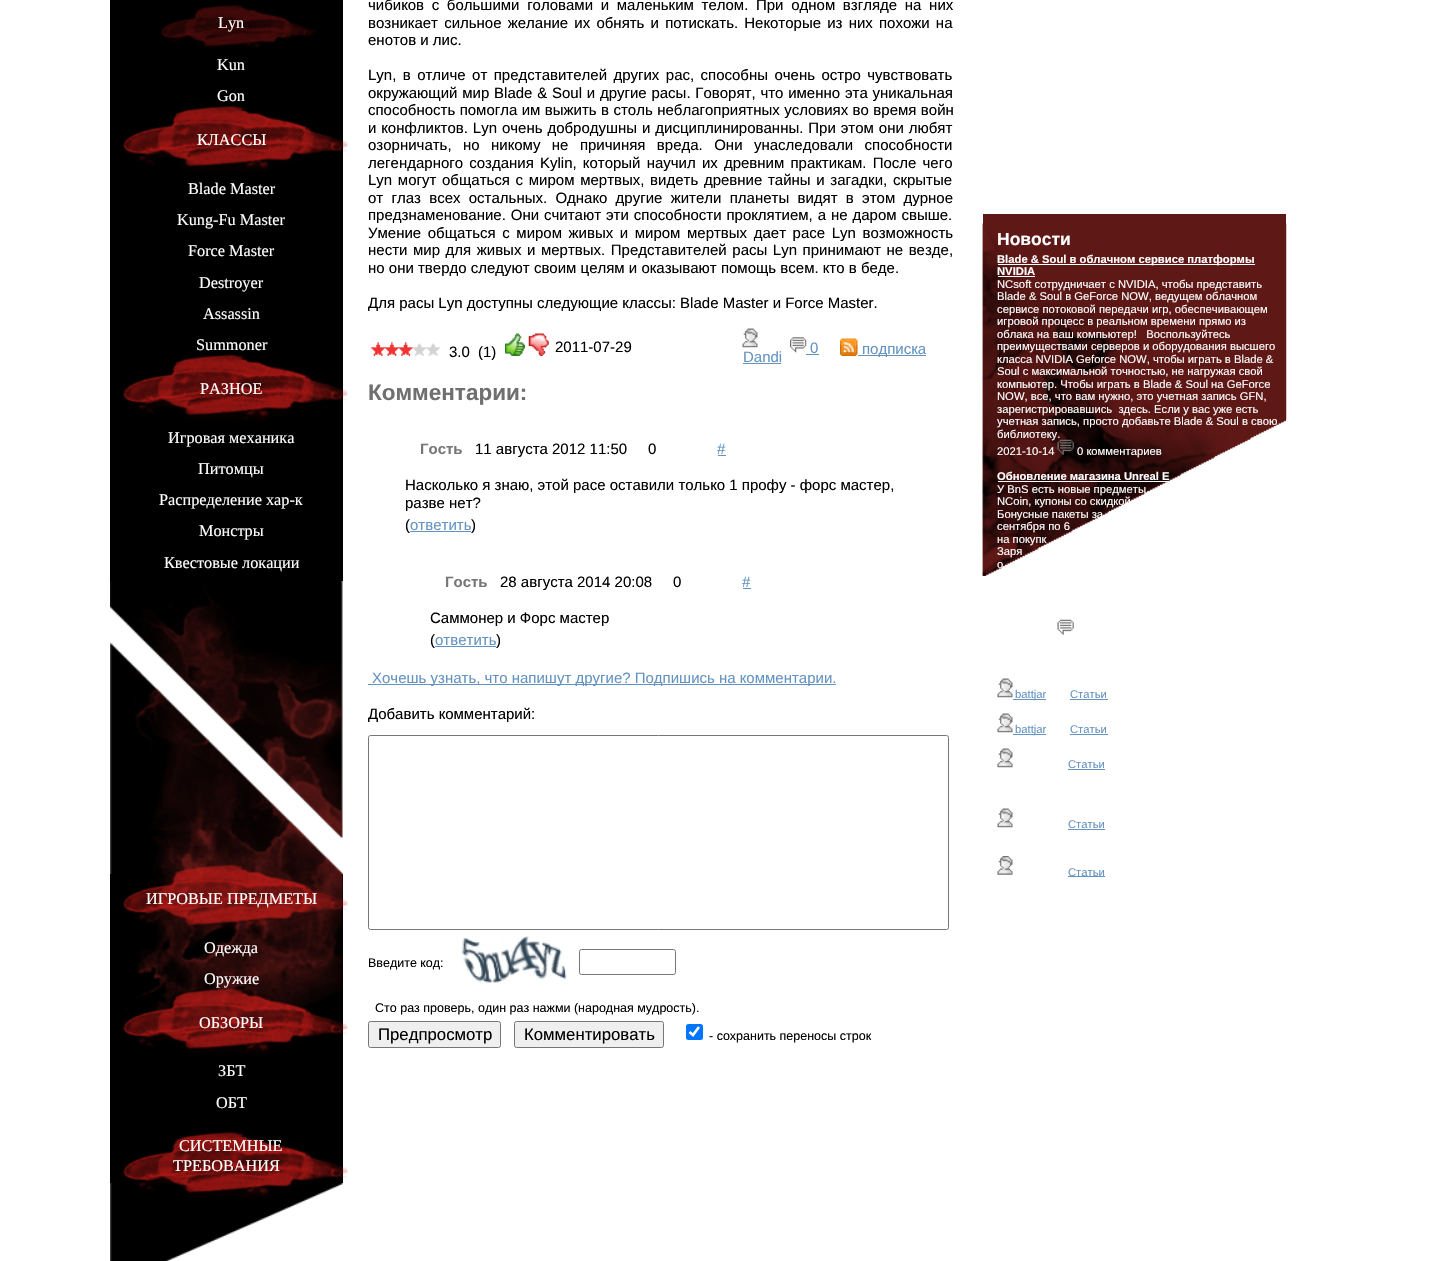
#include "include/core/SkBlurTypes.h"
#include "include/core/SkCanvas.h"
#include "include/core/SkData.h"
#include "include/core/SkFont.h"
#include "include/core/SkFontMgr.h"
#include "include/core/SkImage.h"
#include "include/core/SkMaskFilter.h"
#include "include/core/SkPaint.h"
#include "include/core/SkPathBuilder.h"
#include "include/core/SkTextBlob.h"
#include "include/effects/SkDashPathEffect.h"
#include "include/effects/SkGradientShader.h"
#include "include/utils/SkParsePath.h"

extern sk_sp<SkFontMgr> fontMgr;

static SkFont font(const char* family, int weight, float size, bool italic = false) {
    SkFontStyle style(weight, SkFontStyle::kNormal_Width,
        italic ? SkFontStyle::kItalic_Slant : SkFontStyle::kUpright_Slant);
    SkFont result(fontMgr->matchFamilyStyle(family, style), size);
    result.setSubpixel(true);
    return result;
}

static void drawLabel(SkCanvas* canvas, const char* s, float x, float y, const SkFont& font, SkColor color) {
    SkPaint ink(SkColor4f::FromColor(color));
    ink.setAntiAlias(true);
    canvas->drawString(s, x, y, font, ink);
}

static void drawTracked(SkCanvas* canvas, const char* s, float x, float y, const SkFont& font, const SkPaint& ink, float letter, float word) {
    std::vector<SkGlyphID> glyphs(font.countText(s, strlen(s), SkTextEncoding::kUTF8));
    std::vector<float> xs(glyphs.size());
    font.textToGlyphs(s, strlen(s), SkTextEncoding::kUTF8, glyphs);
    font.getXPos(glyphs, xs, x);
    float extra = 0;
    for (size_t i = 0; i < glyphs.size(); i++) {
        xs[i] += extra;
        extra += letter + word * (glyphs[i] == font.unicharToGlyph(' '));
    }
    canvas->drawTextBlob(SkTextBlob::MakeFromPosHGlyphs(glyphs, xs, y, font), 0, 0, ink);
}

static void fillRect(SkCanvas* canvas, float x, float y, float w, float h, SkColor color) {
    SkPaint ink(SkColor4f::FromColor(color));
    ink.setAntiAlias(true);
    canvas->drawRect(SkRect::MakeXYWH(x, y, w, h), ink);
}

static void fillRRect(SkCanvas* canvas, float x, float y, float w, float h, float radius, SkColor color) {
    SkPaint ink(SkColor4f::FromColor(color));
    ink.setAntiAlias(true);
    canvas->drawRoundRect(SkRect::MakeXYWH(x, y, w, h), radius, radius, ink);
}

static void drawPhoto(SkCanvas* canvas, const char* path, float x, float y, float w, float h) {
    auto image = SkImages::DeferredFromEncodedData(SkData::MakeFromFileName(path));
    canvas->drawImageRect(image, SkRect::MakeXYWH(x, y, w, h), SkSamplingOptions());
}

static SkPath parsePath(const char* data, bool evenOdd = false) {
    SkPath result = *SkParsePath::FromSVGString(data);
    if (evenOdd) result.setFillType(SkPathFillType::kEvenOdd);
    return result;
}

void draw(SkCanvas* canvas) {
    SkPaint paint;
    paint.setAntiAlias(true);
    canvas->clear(0xFFFFFFFF);
    fillRect(canvas, 110, 0, 233, 581, 0xFF000000);
    drawPhoto(canvas, "assets/img1.png", 160, 4, 157, 45);
    SkFont font1 = font("Liberation Serif", 400, 16.25f);
    drawLabel(canvas, "Lyn", 218, 28, font1, 0xFFFFFFFF);
    drawLabel(canvas, "Kun", 217, 70, font1, 0xFFFFFFFF);
    drawLabel(canvas, "Gon", 217, 101, font1, 0xFFFFFFFF);
    drawPhoto(canvas, "assets/img2.png", 122, 106, 226, 66);
    drawLabel(canvas, "КЛАССЫ", 197, 145, font1, 0xFFFFFFFF);
    drawLabel(canvas, "Blade Master", 188, 194, font1, 0xFFFFFFFF);
    drawLabel(canvas, "Kung-Fu Master", 177, 225, font1, 0xFFFFFFFF);
    drawLabel(canvas, "Force Master", 188, 256, font1, 0xFFFFFFFF);
    drawLabel(canvas, "Destroyer", 199, 288, font1, 0xFFFFFFFF);
    drawLabel(canvas, "Assassin", 203, 319, font1, 0xFFFFFFFF);
    drawLabel(canvas, "Summoner", 196, 350, font1, 0xFFFFFFFF);
    drawPhoto(canvas, "assets/img3.png", 123, 354, 225, 67);
    drawLabel(canvas, "РАЗНОЕ", 200, 394, font1, 0xFFFFFFFF);
    drawLabel(canvas, "Игровая механика", 168, 443, font1, 0xFFFFFFFF);
    drawLabel(canvas, "Питомцы", 198, 474, font1, 0xFFFFFFFF);
    drawLabel(canvas, "Распределение хар-к", 159, 505, font1, 0xFFFFFFFF);
    drawLabel(canvas, "Монстры", 199, 536, font1, 0xFFFFFFFF);
    drawLabel(canvas, "Квестовые локации", 164, 568, font1, 0xFFFFFFFF);
    drawPhoto(canvas, "assets/img4.png", 110, 581, 233, 258);
    fillRect(canvas, 110, 874, 233, 309, 0xFF000000);
    drawPhoto(canvas, "assets/img5.png", 110, 642, 233, 400);
    drawPhoto(canvas, "assets/img6.png", 123, 864, 225, 67);
    drawLabel(canvas, "ИГРОВЫЕ ПРЕДМЕТЫ", 146, 904, font1, 0xFFFFFFFF);
    drawLabel(canvas, "Одежда", 204, 953, font1, 0xFFFFFFFF);
    drawLabel(canvas, "Оружие", 204, 984, font1, 0xFFFFFFFF);
    drawPhoto(canvas, "assets/img7.png", 123, 988, 225, 67);
    drawLabel(canvas, "ОБЗОРЫ", 199, 1028, font1, 0xFFFFFFFF);
    drawLabel(canvas, "ЗБТ", 218, 1076, font1, 0xFFFFFFFF);
    drawLabel(canvas, "ОБТ", 216, 1108, font1, 0xFFFFFFFF);
    drawPhoto(canvas, "assets/img9.png", 110, 1183, 233, 78);
    drawPhoto(canvas, "assets/img8.png", 122, 1132, 226, 67);
    drawLabel(canvas, "СИСТЕМНЫЕ", 179, 1151, font1, 0xFFFFFFFF);
    drawLabel(canvas, "ТРЕБОВАНИЯ", 173, 1171, font1, 0xFFFFFFFF);
    SkFont font2 = font("Liberation Sans", 400, 15);
    paint.setColor(0xFF000000);
    drawTracked(canvas, "чибиков с большими головами и маленьким телом. При одном взгляде на них", 368, 10, font2, paint, 0, 3.5f);
    drawTracked(canvas, "возникает сильное желание их обнять и потискать. Некоторые из них похожи на", 368, 28, font2, paint, 0, 2);
    drawLabel(canvas, "енотов и лис.", 368, 45, font2, 0xFF000000);
    drawTracked(canvas, "Lyn, в отличе от представителей других рас, способны очень остро чувствовать", 368, 80, font2, paint, 0, 2.25f);
    drawTracked(canvas, "окружающий мир Blade & Soul и другие расы. Говорят, что именно эта уникальная", 368, 98, font2, paint, 0, 0.6f);
    drawTracked(canvas, "способность помогла им выжить в столь неблагоприятных условиях во время войн", 368, 115, font2, paint, 0, 0.25f);
    drawTracked(canvas, "и конфликтов. Lyn очень добродушны и дисциплинированны. При этом они любят", 368, 133, font2, paint, 0, 0.75f);
    drawTracked(canvas, "озорничать, но никому не причиняя вреда. Они унаследовали способности", 368, 150, font2, paint, 0, 7.25f);
    drawTracked(canvas, "легендарного создания Kylin, который научил их древним практикам. После чего", 368, 168, font2, paint, 0, 2);
    drawTracked(canvas, "Lyn могут общаться с миром мертвых, видеть древние тайны и загадки, скрытые", 368, 185, font2, paint, 0, 1.5f);
    drawTracked(canvas, "от глаз всех остальных. Однако другие жители планеты видят в этом дурное", 368, 203, font2, paint, 0, 4.1f);
    drawTracked(canvas, "предзнаменование. Они считают эти способности проклятием, а не даром свыше.", 368, 220, font2, paint, 0, 0.75f);
    drawTracked(canvas, "Умение общаться с миром живых и миром мертвых дает расе Lyn возможность", 368, 238, font2, paint, 0, 2.4f);
    drawTracked(canvas, "нести мир для живых и мертвых. Представителей расы Lyn принимают не везде,", 368, 255, font2, paint, 0, 1.4f);
    drawLabel(canvas, "но они твердо следуют своим целям и оказывают помощь всем. кто в беде.", 368, 273, font2, 0xFF000000);
    drawLabel(canvas, "Для расы Lyn доступны следующие классы: Blade Master и Force Master.", 368, 308, font2, 0xFF000000);
    drawPhoto(canvas, "assets/img10.png", 371, 342, 69, 14);
    drawLabel(canvas, "3.0", 449, 357, font2, 0xFF000000);
    drawLabel(canvas, "(1)", 478, 357, font2, 0xFF000000);
    drawPhoto(canvas, "assets/img11.png", 505, 333, 20, 23);
    drawPhoto(canvas, "assets/img12.png", 528, 333, 21, 23);
    drawLabel(canvas, "2011-07-29", 555, 352, font2, 0xFF000000);
    drawPhoto(canvas, "assets/img13.png", 742, 328, 16, 20);
    drawLabel(canvas, "Dandi", 743, 362, font2, 0xFF6593C1);
    fillRect(canvas, 743, 363, 38, 1, 0xFF6593C1);
    drawPhoto(canvas, "assets/img14.png", 790, 337, 17, 16);
    drawLabel(canvas, "0", 810, 353, font2, 0xFF6593C1);
    fillRect(canvas, 806, 354, 13, 1, 0xFF6593C1);
    drawPhoto(canvas, "assets/img15.png", 840, 338, 18, 18);
    fillRect(canvas, 858, 355, 68, 1, 0xFF6593C1);
    drawLabel(canvas, "подписка", 862, 354, font2, 0xFF6593C1);
    SkFont font3 = font("Liberation Sans", 700, 22.5f);
    drawLabel(canvas, "Комментарии:", 368, 400, font3, 0xFF6F6F6F);
    SkFont font4 = font("Liberation Sans", 700, 15);
    drawLabel(canvas, "Гость", 420, 454, font4, 0xFF777777);
    drawLabel(canvas, "11 августа 2012 11:50", 475, 454, font2, 0xFF000000);
    drawLabel(canvas, "0", 648, 454, font2, 0xFF000000);
    drawLabel(canvas, "#", 717, 454, font2, 0xFF6593C1);
    fillRect(canvas, 718, 455, 8, 1, 0xFF6593C1);
    drawLabel(canvas, "Насколько я знаю, этой расе оставили только 1 профу - форс мастер,", 405, 490, font2, 0xFF000000);
    drawLabel(canvas, "разве нет?", 405, 508, font2, 0xFF000000);
    drawLabel(canvas, "(", 405, 530, font2, 0xFF000000);
    fillRect(canvas, 410, 531, 61, 1, 0xFF6593C1);
    drawLabel(canvas, "ответить", 410, 530, font2, 0xFF6593C1);
    drawLabel(canvas, ")", 471, 530, font2, 0xFF000000);
    drawLabel(canvas, "Гость", 445, 587, font4, 0xFF777777);
    drawLabel(canvas, "28 августа 2014 20:08", 500, 587, font2, 0xFF000000);
    drawLabel(canvas, "0", 673, 587, font2, 0xFF000000);
    drawLabel(canvas, "#", 742, 587, font2, 0xFF6593C1);
    fillRect(canvas, 743, 588, 8, 1, 0xFF6593C1);
    drawLabel(canvas, "Саммонер и Форс мастер", 430, 623, font2, 0xFF000000);
    drawLabel(canvas, "(", 430, 645, font2, 0xFF000000);
    fillRect(canvas, 435, 646, 61, 1, 0xFF6593C1);
    drawLabel(canvas, "ответить", 435, 645, font2, 0xFF6593C1);
    drawLabel(canvas, ")", 496, 645, font2, 0xFF000000);
    fillRect(canvas, 368, 684, 468, 1, 0xFF6593C1);
    drawLabel(canvas, "Хочешь узнать, что напишут другие? Подпишись на комментарии.", 372, 683, font2, 0xFF6593C1);
    drawLabel(canvas, "Добавить комментарий:", 368, 719, font2, 0xFF000000);
    paint.setStroke(true);
    paint.setStrokeWidth(1);
    paint.setColor(0xFF767676);
    canvas->drawRoundRect(SkRect::MakeXYWH(368.5f, 735.5f, 580, 194), 2, 2, paint);
    SkFont font5 = font("Liberation Sans", 400, 12.5f);
    drawLabel(canvas, "Введите код:", 368, 967, font5, 0xFF000000);
    drawPhoto(canvas, "assets/img16.png", 461, 936, 106, 47);
    canvas->drawRoundRect(SkRect::MakeXYWH(579.5f, 949.5f, 96, 25), 2, 2, paint);
    drawLabel(canvas, "Сто раз проверь, один раз нажми (народная мудрость).", 375, 1012, font5, 0xFF000000);
    paint.setStroke(false);
    paint.setColor(0xFFEFEFEF);
    canvas->drawRoundRect(SkRect::MakeXYWH(368.5f, 1021.5f, 132, 26), 2, 2, paint);
    paint.setStroke(true);
    paint.setColor(0xFF767676);
    canvas->drawRoundRect(SkRect::MakeXYWH(368.5f, 1021.5f, 132, 26), 2, 2, paint);
    SkFont font6 = font("Liberation Sans", 400, 16.75f);
    drawLabel(canvas, "Предпросмотр", 378, 1040, font6, 0xFF000000);
    paint.setStroke(false);
    paint.setColor(0xFFEFEFEF);
    canvas->drawRoundRect(SkRect::MakeXYWH(514.5f, 1021.5f, 149, 26), 2, 2, paint);
    paint.setStroke(true);
    paint.setColor(0xFF767676);
    canvas->drawRoundRect(SkRect::MakeXYWH(514.5f, 1021.5f, 149, 26), 2, 2, paint);
    drawLabel(canvas, "Комментировать", 524, 1040, font6, 0xFF000000);
    fillRRect(canvas, 686, 1024, 17, 16, 2.5f, 0xFF0075FF);
    paint.setStrokeWidth(2.6f);
    paint.setColor(0xFFFFFFFF);
    canvas->drawPath(parsePath("M689.5 1032L693 1035L699 1027"), paint);
    drawLabel(canvas, "- сохранить переносы строк", 709, 1040, font5, 0xFF000000);
    fillRect(canvas, 983, 214, 303, 362, 0xFF5E1816);
    drawPhoto(canvas, "assets/img17.png", 982, 223, 305, 353);
    SkFont font7 = font("Liberation Sans", 700, 17.5f);
    drawLabel(canvas, "Новости", 997, 245, font7, 0xFFFFFFFF);
    fillRect(canvas, 998, 264, 257, 1, 0xFFFFFFFF);
    SkFont font8 = font("Liberation Sans", 700, 11.25f);
    drawLabel(canvas, "Blade & Soul в облачном сервисе платформы", 997, 263, font8, 0xFFFFFFFF);
    drawLabel(canvas, "NVIDIA", 997, 275, font8, 0xFFFFFFFF);
    fillRect(canvas, 998, 276, 37, 1, 0xFFFFFFFF);
    SkFont font9 = font("Liberation Sans", 400, 11.25f);
    drawLabel(canvas, "NCsoft сотрудничает с NVIDIA, чтобы представить", 997, 288, font9, 0xFFFFFFFF);
    drawLabel(canvas, "Blade & Soul в GeForce NOW, ведущем облачном", 997, 300, font9, 0xFFFFFFFF);
    drawLabel(canvas, "сервисе потоковой передачи игр, обеспечивающем", 997, 313, font9, 0xFFFFFFFF);
    drawLabel(canvas, "игровой процесс в реальном времени прямо из", 997, 325, font9, 0xFFFFFFFF);
    drawLabel(canvas, "облака на ваш компьютер!   Воспользуйтесь", 997, 338, font9, 0xFFFFFFFF);
    drawLabel(canvas, "преимуществами серверов и оборудования высшего", 997, 350, font9, 0xFFFFFFFF);
    drawLabel(canvas, "класса NVIDIA Geforce NOW, чтобы играть в Blade &", 997, 363, font9, 0xFFFFFFFF);
    drawLabel(canvas, "Soul с максимальной точностью, не нагружая свой", 997, 375, font9, 0xFFFFFFFF);
    drawLabel(canvas, "компьютер. Чтобы играть в Blade & Soul на GeForce", 997, 388, font9, 0xFFFFFFFF);
    drawLabel(canvas, "NOW, все, что вам нужно, это учетная запись GFN,", 997, 400, font9, 0xFFFFFFFF);
    drawLabel(canvas, "зарегистрировавшись  здесь. Если у вас уже есть", 997, 413, font9, 0xFFFFFFFF);
    drawLabel(canvas, "учетная запись, просто добавьте Blade & Soul в свою", 997, 425, font9, 0xFFFFFFFF);
    drawLabel(canvas, "библиотеку.", 997, 438, font9, 0xFFFFFFFF);
    drawLabel(canvas, "2021-10-14", 997, 455, font9, 0xFFFFFFFF);
    drawPhoto(canvas, "assets/img18.png", 1057, 439, 17, 16);
    drawLabel(canvas, "0 комментариев", 1077, 455, font9, 0xFFFFFFFF);
    drawLabel(canvas, "Обновление магазина Unreal E", 997, 480, font8, 0xFFFFFFFF);
    fillRect(canvas, 998, 481, 173, 1, 0xFFFFFFFF);
    drawLabel(canvas, "У BnS есть новые предметы,", 997, 493, font9, 0xFFFFFFFF);
    drawLabel(canvas, "NCoin, купоны со скидкой", 997, 505, font9, 0xFFFFFFFF);
    drawLabel(canvas, "Бонусные пакеты за", 997, 518, font9, 0xFFFFFFFF);
    drawLabel(canvas, "сентября по 6", 997, 530, font9, 0xFFFFFFFF);
    drawLabel(canvas, "на покупк", 997, 543, font9, 0xFFFFFFFF);
    drawLabel(canvas, "Заря", 997, 555, font9, 0xFFFFFFFF);
    drawLabel(canvas, "о", 997, 568, font9, 0xFFFFFFFF);
    drawPhoto(canvas, "assets/img19.png", 1057, 619, 17, 16);
    drawPhoto(canvas, "assets/img20.png", 997, 678, 16, 20);
    fillRect(canvas, 1013, 699, 33, 1, 0xFF6593C1);
    drawLabel(canvas, "battjar", 1015, 698, font9, 0xFF6593C1);
    drawLabel(canvas, "Статьи", 1070, 698, font9, 0xFF6593C1);
    fillRect(canvas, 1070, 699, 38, 1, 0xFF6593C1);
    drawPhoto(canvas, "assets/img20.png", 997, 713, 16, 20);
    fillRect(canvas, 1013, 734, 33, 1, 0xFF6593C1);
    drawLabel(canvas, "battjar", 1015, 733, font9, 0xFF6593C1);
    drawLabel(canvas, "Статьи", 1070, 733, font9, 0xFF6593C1);
    fillRect(canvas, 1070, 734, 38, 1, 0xFF6593C1);
    drawPhoto(canvas, "assets/img20.png", 997, 748, 16, 20);
    drawLabel(canvas, "Статьи", 1068, 768, font9, 0xFF6593C1);
    fillRect(canvas, 1068, 769, 37, 1, 0xFF6593C1);
    drawPhoto(canvas, "assets/img20.png", 997, 808, 16, 20);
    drawLabel(canvas, "Статьи", 1068, 828, font9, 0xFF6593C1);
    fillRect(canvas, 1068, 829, 37, 1, 0xFF6593C1);
    drawPhoto(canvas, "assets/img21.png", 997, 856, 16, 19);
    fillRect(canvas, 1068, 876, 37, 1, 0xFF6593C1);
    drawLabel(canvas, "Статьи", 1068, 876, font9, 0xFF6593C1);
}
